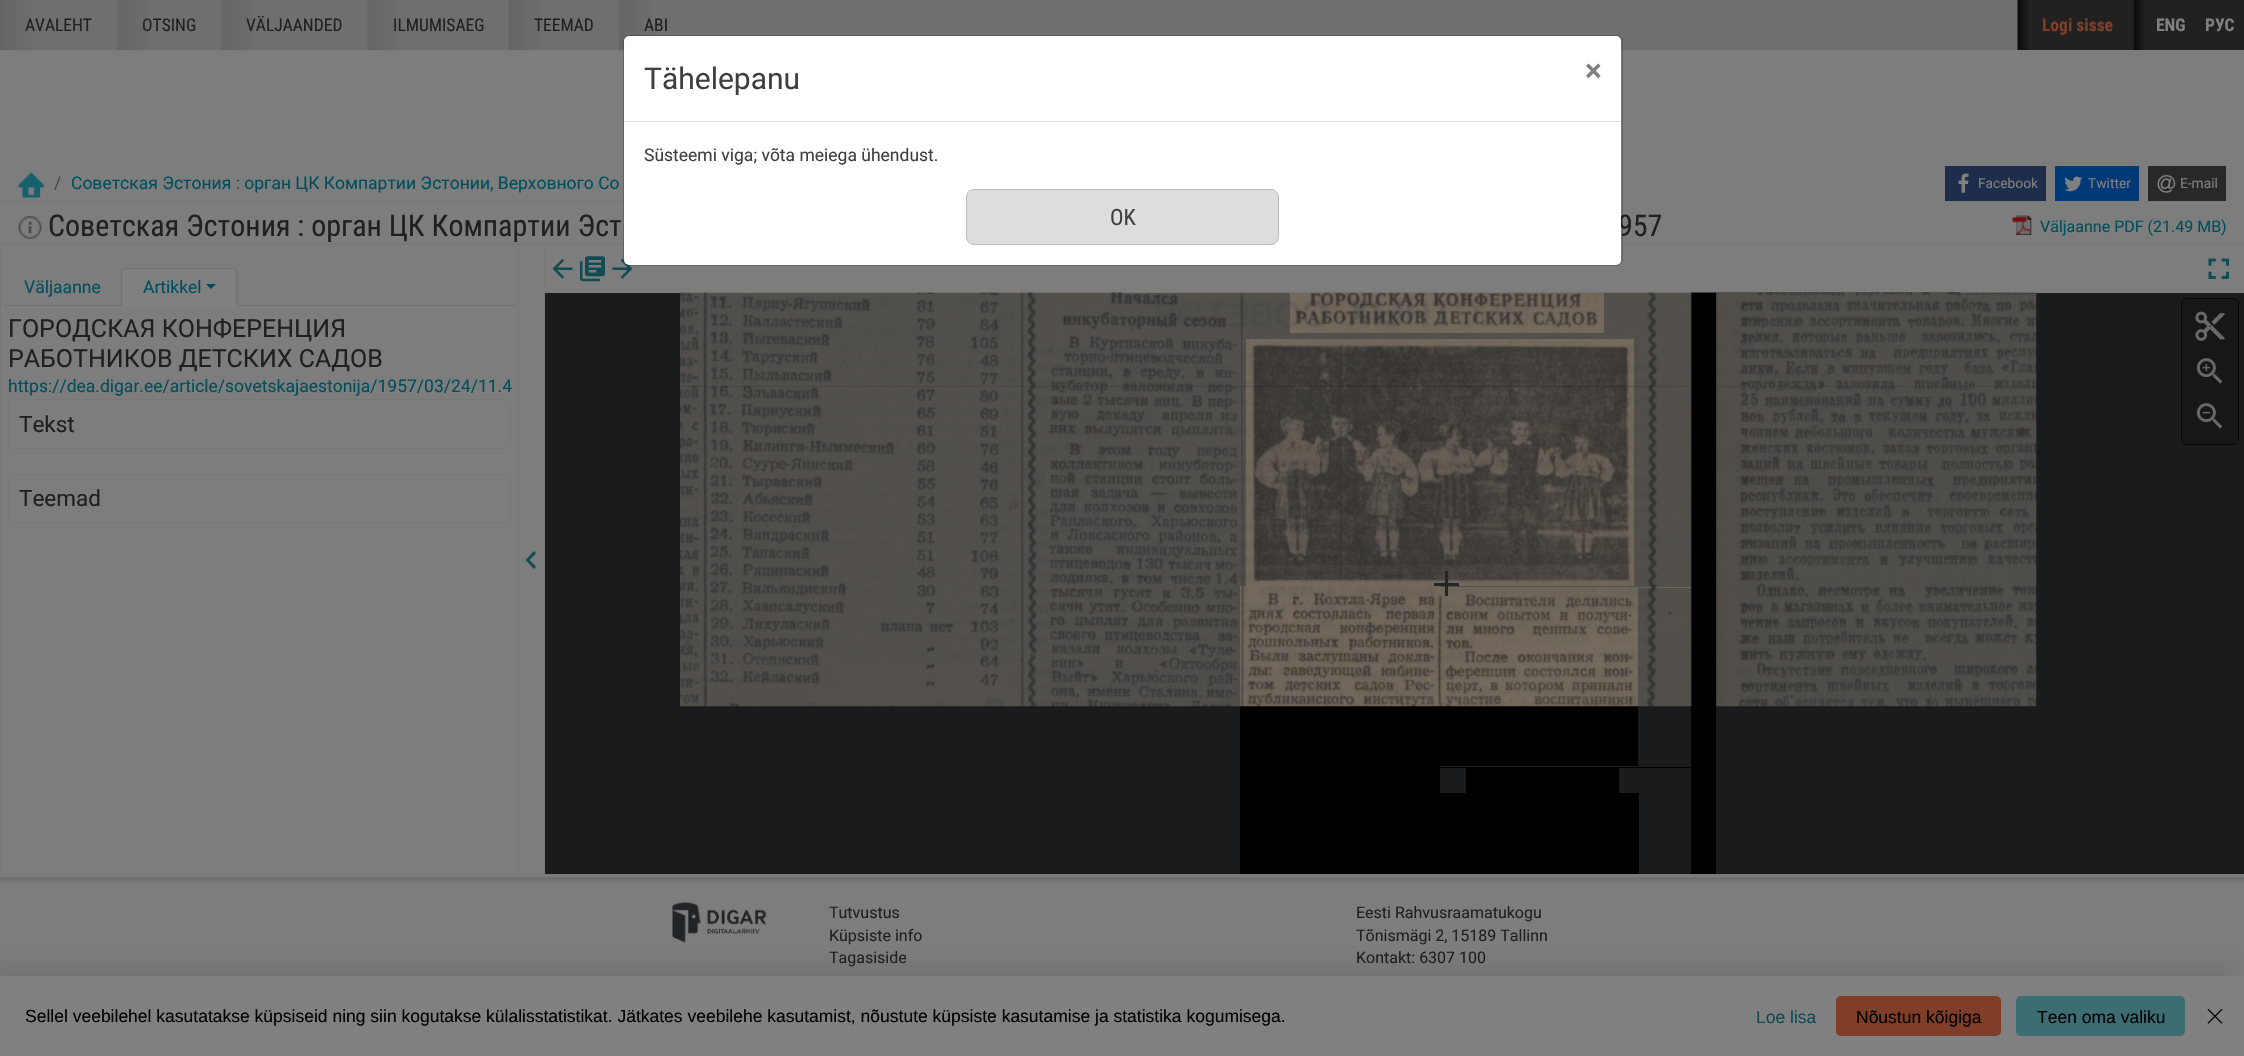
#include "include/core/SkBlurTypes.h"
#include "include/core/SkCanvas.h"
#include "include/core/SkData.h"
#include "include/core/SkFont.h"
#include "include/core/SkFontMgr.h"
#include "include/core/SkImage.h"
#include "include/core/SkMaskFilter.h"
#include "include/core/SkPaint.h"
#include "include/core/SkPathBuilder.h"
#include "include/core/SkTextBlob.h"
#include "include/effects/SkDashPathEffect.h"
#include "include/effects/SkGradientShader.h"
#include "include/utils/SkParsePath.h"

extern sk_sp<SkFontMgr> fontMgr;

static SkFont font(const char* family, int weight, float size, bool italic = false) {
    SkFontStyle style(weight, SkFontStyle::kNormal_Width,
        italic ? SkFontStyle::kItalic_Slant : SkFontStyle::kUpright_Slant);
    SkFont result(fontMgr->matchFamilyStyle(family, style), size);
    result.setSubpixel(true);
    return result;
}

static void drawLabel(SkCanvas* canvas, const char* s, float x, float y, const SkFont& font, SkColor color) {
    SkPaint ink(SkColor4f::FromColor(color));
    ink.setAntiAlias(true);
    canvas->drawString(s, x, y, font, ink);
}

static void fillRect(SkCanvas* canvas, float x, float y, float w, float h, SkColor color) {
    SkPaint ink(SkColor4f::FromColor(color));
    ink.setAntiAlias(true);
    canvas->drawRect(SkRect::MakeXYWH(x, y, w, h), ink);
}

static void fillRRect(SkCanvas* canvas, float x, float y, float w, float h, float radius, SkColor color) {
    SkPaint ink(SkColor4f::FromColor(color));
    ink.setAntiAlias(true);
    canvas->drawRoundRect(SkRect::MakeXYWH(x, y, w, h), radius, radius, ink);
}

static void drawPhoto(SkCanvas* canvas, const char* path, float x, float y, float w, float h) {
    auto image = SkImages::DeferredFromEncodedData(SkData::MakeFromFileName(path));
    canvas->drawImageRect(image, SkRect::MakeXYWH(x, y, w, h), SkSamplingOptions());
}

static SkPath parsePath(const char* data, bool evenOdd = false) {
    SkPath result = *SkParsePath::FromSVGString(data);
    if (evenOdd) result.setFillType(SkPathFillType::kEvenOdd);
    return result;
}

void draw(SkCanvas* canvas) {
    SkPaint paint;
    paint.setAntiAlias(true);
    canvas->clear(0xFF7D7D7D);
    fillRect(canvas, 0, 0, 2018, 50, 0xFF6F6F6F);
    drawPhoto(canvas, "assets/img1.png", 0, 0, 32, 50);
    SkFont font1 = font("Roboto Condensed", 400, 17.5f);
    drawLabel(canvas, "AVALEHT", 25, 31, font1, 0xFF202020);
    drawPhoto(canvas, "assets/img2.png", 117, 0, 32, 50);
    drawLabel(canvas, "OTSING", 142, 31, font1, 0xFF202020);
    drawPhoto(canvas, "assets/img3.png", 221, 0, 33, 50);
    drawLabel(canvas, "VÄLJAANDED", 246, 31, font1, 0xFF202020);
    drawPhoto(canvas, "assets/img2.png", 367, 0, 32, 50);
    drawLabel(canvas, "ILMUMISAEG", 393, 31, font1, 0xFF202020);
    drawPhoto(canvas, "assets/img4.png", 508, 0, 34, 50);
    drawLabel(canvas, "TEEMAD", 534, 31, font1, 0xFF202020);
    drawPhoto(canvas, "assets/img4.png", 618, 0, 34, 50);
    drawLabel(canvas, "ABI", 644, 31, font1, 0xFF202020);
    fillRect(canvas, 2018, 0, 226, 50, 0xFF212121);
    drawPhoto(canvas, "assets/img5.png", 2133, 0, 12, 50);
    drawPhoto(canvas, "assets/img6.png", 2017, 0, 12, 50);
    SkFont font2 = font("Roboto Condensed", 700, 17.5f);
    drawLabel(canvas, "Logi sisse", 2042, 31, font2, 0xFF803D27);
    drawLabel(canvas, "ENG", 2156, 31, font2, 0xFF808080);
    drawLabel(canvas, "РУС", 2205, 31, font2, 0xFF808080);
    fillRect(canvas, 0, 201, 624, 1, 0xFF767778);
    drawPhoto(canvas, "assets/img7.png", 18, 172, 26, 26);
    SkFont font3 = font("Roboto", 400, 17.5f);
    drawLabel(canvas, "/", 54, 189, font3, 0xFF43474B);
    drawLabel(canvas, "Советская Эстония : орган ЦК Компартии Эстонии, Верховного Со", 71, 189, font3, 0xFF004E5C);
    fillRect(canvas, 1945, 166, 101, 35, 0xFF1E2D4C);
    drawPhoto(canvas, "assets/img8.png", 1958, 173, 11, 20);
    SkFont font4 = font("Roboto", 400, 13.75f);
    drawLabel(canvas, "Facebook", 1978, 188, font4, 0xFF808080);
    fillRect(canvas, 2055, 166, 84, 35, 0xFF003977);
    drawPhoto(canvas, "assets/img9.png", 2064, 176, 19, 16);
    drawLabel(canvas, "Twitter", 2088, 188, font4, 0xFF808080);
    fillRect(canvas, 2148, 166, 78, 35, 0xFF282828);
    drawPhoto(canvas, "assets/img10.png", 2157, 175, 19, 18);
    drawLabel(canvas, "E-mail", 2180, 188, font4, 0xFF808080);
    SkFont font5 = font("Roboto Condensed", 400, 30);
    drawLabel(canvas, "957", 1618, 236, font5, 0xFF202020);
    paint.setStroke(true);
    paint.setStrokeWidth(1);
    paint.setColor(0xFF767778);
    canvas->drawRect(SkRect::MakeXYWH(0.5f, 244.5f, 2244, 630), paint);
    drawPhoto(canvas, "assets/img15.png", 612, 258, 21, 21);
    fillRRect(canvas, 624, 36, 997, 229, 5, 0xFFFFFFFF);
    paint.setColor(0x33000000);
    canvas->drawRoundRect(SkRect::MakeXYWH(623.5f, 35.5f, 999, 230), 5.5f, 5.5f, paint);
    fillRect(canvas, 624, 121, 997, 1, 0xFFDEE2E6);
    SkFont font6 = font("Roboto", 400, 30);
    drawLabel(canvas, "Tähelepanu", 644, 89, font6, 0xFF3F3F3F);
    SkFont font7 = font("Roboto", 700, 30);
    drawLabel(canvas, "×", 1585, 81, font7, 0xFF808080);
    drawLabel(canvas, "Süsteemi viga; võta meiega ühendust.", 644, 161, font3, 0xFF3F3F3F);
    paint.setStroke(false);
    paint.setColor(0xFFDDDDDD);
    canvas->drawRoundRect(SkRect::MakeXYWH(966.5f, 189.5f, 312, 55), 7.5f, 7.5f, paint);
    paint.setStroke(true);
    paint.setColor(0xFFBBBBBB);
    canvas->drawRoundRect(SkRect::MakeXYWH(966.5f, 189.5f, 312, 55), 7.5f, 7.5f, paint);
    SkFont font8 = font("Roboto Condensed", 400, 22.5f);
    drawLabel(canvas, "OK", 1110, 225, font8, 0xFF3F3F3F);
    drawPhoto(canvas, "assets/img11.png", 18, 216, 24, 23);
    drawLabel(canvas, "Советская Эстония : орган ЦК Компартии Эст", 48, 236, font5, 0xFF202020);
    drawPhoto(canvas, "assets/img12.png", 2012, 215, 20, 20);
    SkFont font9 = font("Roboto", 400, 16);
    drawLabel(canvas, "Väljaanne PDF (21.49 MB)", 2040, 232, font9, 0xFF004E5C);
    fillRect(canvas, 3, 305, 513, 1, 0xFF6F7173);
    drawLabel(canvas, "Väljaanne", 24, 293, font3, 0xFF004E5C);
    paint.setStroke(false);
    paint.setColor(0xFF808080);
    canvas->drawPath(parsePath("M126 268H233C236 268 238 270 238 273V306H121V273C121 270 123 268 126 268Z"), paint);
    paint.setColor(0xFF6F7173);
    canvas->drawPath(parsePath("M126 268L123 269V270L126 269H232C234 269 235 269 235 270L236 269L232 268Z"), paint);
    canvas->drawPath(parsePath("M237.5 306L236 305V272C236 271 236 270.5 235 270L236 269L237.5 270.5Z"), paint);
    paint.setColor(0xFF808080);
    canvas->drawPath(parsePath("M237 306H122V305H236Z"), paint);
    paint.setColor(0xFF6F7173);
    canvas->drawPath(parsePath("M121 271L122.5 269L123.5 269.5L122 271.5V305H122.5L121.5 306H121Z"), paint);
    drawLabel(canvas, "Artikkel", 143, 293, font3, 0xFF004E5C);
    paint.setColor(0xFF004E5C);
    canvas->drawPath(parsePath("M206 284H216L211 289Z"), paint);
    SkFont font10 = font("Roboto", 400, 25);
    drawLabel(canvas, "ГОРОДСКАЯ КОНФЕРЕНЦИЯ", 8, 337, font10, 0xFF202020);
    drawLabel(canvas, "РАБОТНИКОВ ДЕТСКИХ САДОВ", 8, 367, font10, 0xFF202020);
    drawLabel(canvas, "https://dea.digar.ee/article/sovetskajaestonija/1957/03/24/11.4", 8, 392, font3, 0xFF004E5C);
    paint.setStroke(true);
    paint.setColor(0xFF767778);
    canvas->drawRoundRect(SkRect::MakeXYWH(8.5f, 399.5f, 502, 49), 4.5f, 4.5f, paint);
    SkFont font11 = font("Roboto", 400, 22.5f);
    drawLabel(canvas, "Tekst", 19, 432, font11, 0xFF202020);
    canvas->drawRoundRect(SkRect::MakeXYWH(8.5f, 474.5f, 502, 48), 4.5f, 4.5f, paint);
    drawLabel(canvas, "Teemad", 19, 506, font11, 0xFF202020);
    fillRect(canvas, 544, 245, 1, 629, 0xFF767778);
    fillRect(canvas, 518, 245, 1, 629, 0xFF767778);
    paint.setStroke(false);
    paint.setColor(0xFF114B52);
    canvas->drawPath(parsePath("M536 553.5L534 551L525.5 560L534 569L536 566.5L529.5 560Z"), paint);
    drawPhoto(canvas, "assets/img13.png", 552, 258, 21, 21);
    drawPhoto(canvas, "assets/img14.png", 580, 256, 25, 26);
    drawPhoto(canvas, "assets/img16.png", 2208, 258, 21, 21);
    fillRect(canvas, 545, 293, 1699, 581, 0xFF000000);
    drawPhoto(canvas, "assets/img17.png", 680, 292, 320, 95);
    drawPhoto(canvas, "assets/img18.png", 1000, 292, 320, 95);
    drawPhoto(canvas, "assets/img19.png", 1320, 292, 320, 95);
    drawPhoto(canvas, "assets/img20.png", 1640, 292, 320, 95);
    drawPhoto(canvas, "assets/img21.png", 1716, 292, 321, 95);
    drawPhoto(canvas, "assets/img22.png", 680, 386, 320, 321);
    drawPhoto(canvas, "assets/img23.png", 1000, 386, 320, 321);
    drawPhoto(canvas, "assets/img24.png", 1320, 386, 320, 321);
    drawPhoto(canvas, "assets/img25.png", 1640, 386, 54, 321);
    drawPhoto(canvas, "assets/img26.png", 1716, 386, 321, 321);
    fillRect(canvas, 545, 293, 745, 40, 0x80323639);
    fillRect(canvas, 1604, 293, 87, 40, 0x80323639);
    fillRect(canvas, 1716, 293, 528, 581, 0x80323639);
    fillRect(canvas, 545, 333, 1146, 6, 0x80323639);
    fillRect(canvas, 545, 339, 701, 247, 0x80323639);
    fillRect(canvas, 1634, 339, 57, 247, 0x80323639);
    fillRect(canvas, 545, 586, 695, 288, 0x80323639);
    fillRect(canvas, 1440, 586, 251, 1, 0x80323639);
    fillRect(canvas, 1638, 588, 53, 178, 0x80323639);
    fillRect(canvas, 1440, 766, 251, 1, 0xFF191B1D);
    fillRect(canvas, 1440, 768, 26, 25, 0xFF191B1D);
    fillRect(canvas, 1619, 768, 72, 25, 0xFF191B1D);
    fillRect(canvas, 1639, 793, 52, 81, 0xFF191B1D);
    fillRect(canvas, 1434, 583, 25, 3, 0xFF232526);
    fillRect(canvas, 1445, 571, 3, 25, 0xFF232526);
    paint.setColor(0xFF161718);
    canvas->drawRoundRect(SkRect::MakeXYWH(2181.5f, 298.5f, 57, 146), 4.5f, 4.5f, paint);
    paint.setStroke(true);
    paint.setColor(0xFF050606);
    canvas->drawRoundRect(SkRect::MakeXYWH(2181.5f, 298.5f, 57, 146), 4.5f, 4.5f, paint);
    drawPhoto(canvas, "assets/img27.png", 2195, 311, 30, 30);
    drawPhoto(canvas, "assets/img28.png", 2196, 358, 27, 26);
    drawPhoto(canvas, "assets/img29.png", 2196, 403, 27, 26);
    drawPhoto(canvas, "assets/img30.png", 0, 877, 2244, 7);
    fillRect(canvas, 0, 876, 2244, 1, 0xFF767778);
    drawPhoto(canvas, "assets/img31.png", 672, 902, 95, 41);
    drawLabel(canvas, "Tutvustus", 829, 918, font9, 0xFF202020);
    drawLabel(canvas, "Küpsiste info", 829, 941, font9, 0xFF202020);
    drawLabel(canvas, "Tagasiside", 829, 963, font9, 0xFF202020);
    drawLabel(canvas, "Eesti Rahvusraamatukogu", 1356, 918, font9, 0xFF202020);
    drawLabel(canvas, "Tõnismägi 2, 15189 Tallinn", 1356, 941, font9, 0xFF202020);
    drawLabel(canvas, "Kontakt: 6307 100", 1356, 963, font9, 0xFF202020);
    paint.setStroke(false);
    paint.setColor(0x1A000000);
    paint.setMaskFilter(SkMaskFilter::MakeBlur(kNormal_SkBlurStyle, 12.5f));
    canvas->drawRect(SkRect::MakeXYWH(-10, 968, 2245, 80), paint);
    paint.setMaskFilter(nullptr);
    fillRect(canvas, 0, 976, 2244, 80, 0xFF808080);
    SkFont font12 = font("Liberation Sans", 400, 17.5f);
    drawLabel(canvas, "Sellel veebilehel kasutatakse küpsiseid ning siin kogutakse külalisstatistikat. Jätkates veebilehe kasutamist, nõustute küpsiste kasutamise ja statistika kogumisega.", 25, 1022, font12, 0xFF000000);
    drawLabel(canvas, "Loe lisa", 1756, 1023, font12, 0xFF114B52);
    fillRRect(canvas, 1836, 996, 165, 40, 5, 0xFF803D27);
    drawLabel(canvas, "Nõustun kõigiga", 1856, 1023, font12, 0xFF000000);
    fillRRect(canvas, 2016, 996, 169, 40, 5, 0xFF3C6D72);
    drawLabel(canvas, "Teen oma valiku", 2037, 1023, font12, 0xFF000000);
    drawPhoto(canvas, "assets/img32.png", 2207, 1008, 16, 16);
}
